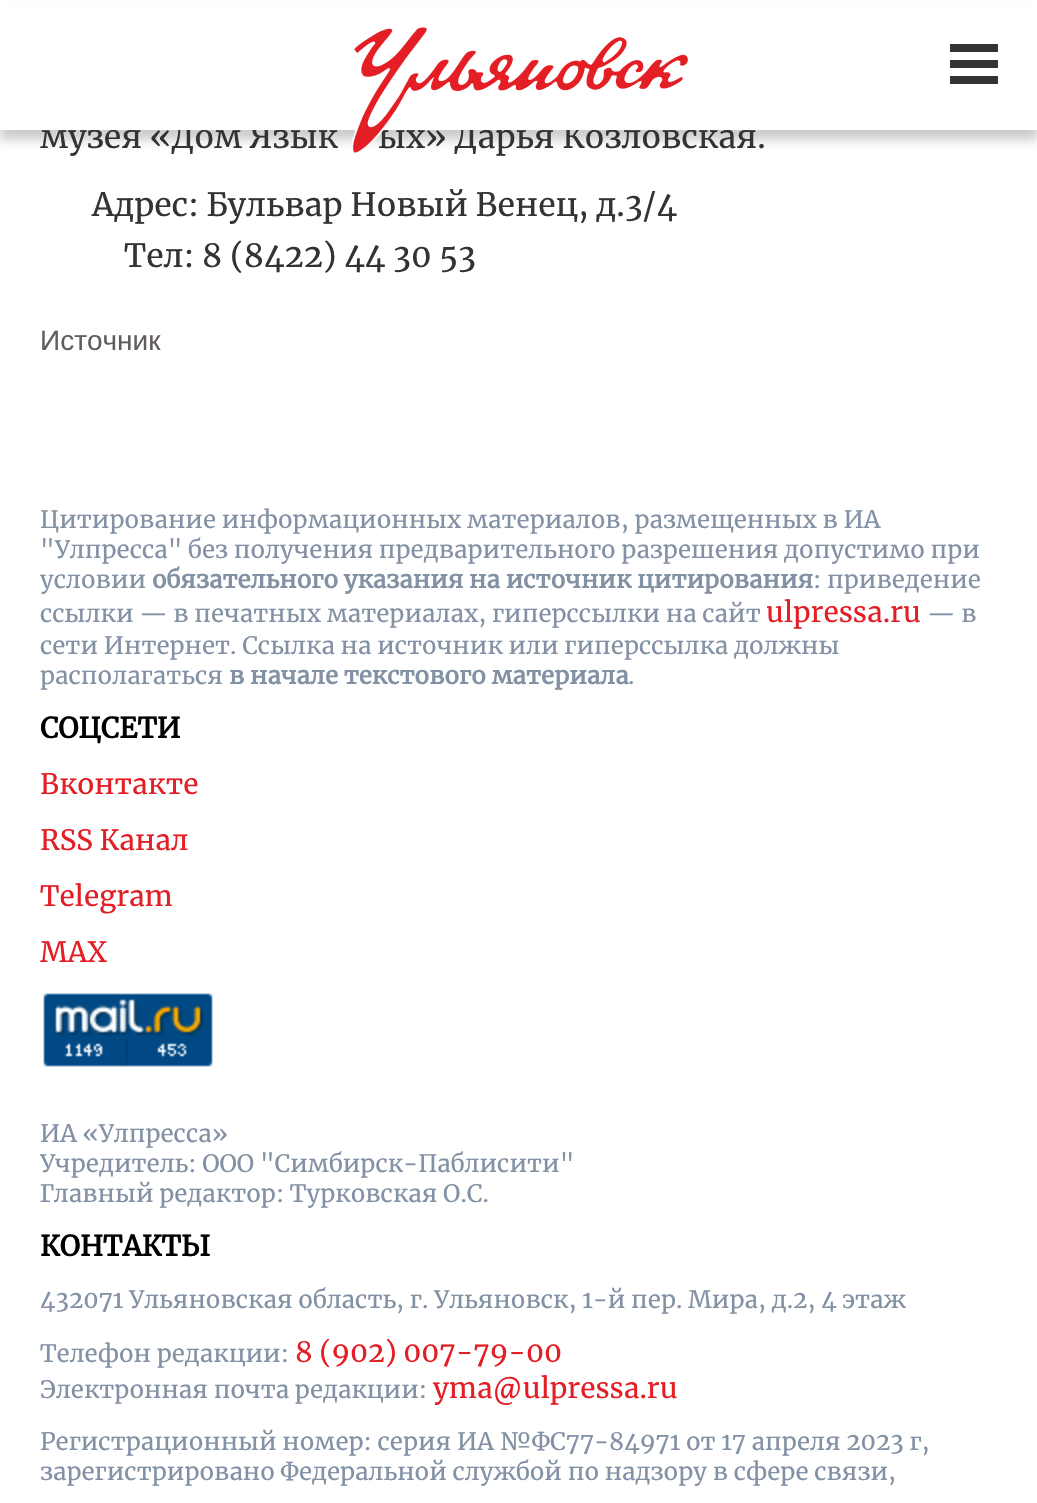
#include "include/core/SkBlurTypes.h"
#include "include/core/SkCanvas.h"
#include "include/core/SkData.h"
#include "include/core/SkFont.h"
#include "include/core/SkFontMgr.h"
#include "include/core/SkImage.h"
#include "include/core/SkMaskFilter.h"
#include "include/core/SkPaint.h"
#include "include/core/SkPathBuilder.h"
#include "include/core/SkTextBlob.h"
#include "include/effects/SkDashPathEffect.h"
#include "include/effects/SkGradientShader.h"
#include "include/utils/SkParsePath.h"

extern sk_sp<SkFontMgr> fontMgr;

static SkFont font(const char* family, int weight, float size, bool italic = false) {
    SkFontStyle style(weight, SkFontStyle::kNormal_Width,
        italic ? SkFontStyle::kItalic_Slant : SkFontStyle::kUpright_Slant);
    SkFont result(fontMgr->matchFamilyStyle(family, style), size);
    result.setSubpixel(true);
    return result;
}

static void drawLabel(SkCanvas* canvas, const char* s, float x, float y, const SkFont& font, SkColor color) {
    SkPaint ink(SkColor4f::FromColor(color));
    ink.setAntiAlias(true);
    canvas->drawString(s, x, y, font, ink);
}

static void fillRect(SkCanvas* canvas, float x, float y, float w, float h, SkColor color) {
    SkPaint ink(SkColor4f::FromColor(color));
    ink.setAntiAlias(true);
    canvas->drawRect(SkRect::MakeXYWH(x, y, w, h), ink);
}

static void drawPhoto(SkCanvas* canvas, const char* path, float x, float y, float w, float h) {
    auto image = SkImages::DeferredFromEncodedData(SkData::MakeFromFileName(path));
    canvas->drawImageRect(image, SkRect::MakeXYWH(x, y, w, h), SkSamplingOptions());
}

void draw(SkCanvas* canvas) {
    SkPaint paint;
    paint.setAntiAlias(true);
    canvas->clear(0xFFFFFFFF);
    paint.setColor(0x33000000);
    paint.setMaskFilter(SkMaskFilter::MakeBlur(kNormal_SkBlurStyle, 5));
    canvas->drawRect(SkRect::MakeXYWH(0, 10, 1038, 130), paint);
    paint.setMaskFilter(nullptr);
    SkFont font1 = font("Merriweather", 400, 32);
    drawLabel(canvas, "музея «Дом Язык", 40, 148, font1, 0xFF333333);
    drawLabel(canvas, "ых» Дарья Козловская.", 378, 148, font1, 0xFF333333);
    fillRect(canvas, 0, 2, 1037, 128, 0xFFFFFFFF);
    drawPhoto(canvas, "assets/img1.png", 351, 27, 337, 126);
    fillRect(canvas, 950, 44, 48, 8, 0xFF333333);
    fillRect(canvas, 950, 60, 48, 8, 0xFF333333);
    fillRect(canvas, 950, 76, 48, 8, 0xFF333333);
    drawLabel(canvas, "Адрес: Бульвар Новый Венец, д.3/4", 92, 216, font1, 0xFF333333);
    drawLabel(canvas, "Тел: 8 (8422) 44 30 53", 124, 267, font1, 0xFF333333);
    SkFont font2 = font("Liberation Sans", 400, 28);
    drawLabel(canvas, "Источник", 40, 350, font2, 0xFF615D5C);
    SkFont font3 = font("Merriweather", 400, 24);
    drawLabel(canvas, "Цитирование информационных материалов, размещенных в ИА", 40, 528, font3, 0xFF8391A5);
    drawLabel(canvas, "\"Улпресса\" без получения предварительного разрешения допустимо при", 40, 558, font3, 0xFF8391A5);
    drawLabel(canvas, "условии", 40, 588, font3, 0xFF8391A5);
    SkFont font4 = font("Merriweather", 700, 24);
    drawLabel(canvas, "обязательного указания на источник цитирования", 152, 588, font4, 0xFF8391A5);
    drawLabel(canvas, ": приведение", 813, 588, font3, 0xFF8391A5);
    drawLabel(canvas, "ссылки — в печатных материалах, гиперссылки на cайт", 40, 622, font3, 0xFF8391A5);
    SkFont font5 = font("Merriweather", 400, 28);
    drawLabel(canvas, "ulpressa.ru", 766, 622, font5, 0xFFE31E24);
    drawLabel(canvas, "— в", 927, 622, font3, 0xFF8391A5);
    drawLabel(canvas, "сети Интернет. Ссылка на источник или гиперссылка должны", 40, 654, font3, 0xFF8391A5);
    drawLabel(canvas, "располагаться", 40, 684, font3, 0xFF8391A5);
    drawLabel(canvas, "в начале текстового материала", 229, 684, font4, 0xFF8391A5);
    drawLabel(canvas, ".", 628, 684, font3, 0xFF8391A5);
    SkFont font6 = font("Merriweather", 700, 28);
    drawLabel(canvas, "СОЦСЕТИ", 40, 738, font6, 0xFF000000);
    drawLabel(canvas, "Вконтакте", 40, 794, font5, 0xFFE31E24);
    drawLabel(canvas, "RSS Канал", 40, 850, font5, 0xFFE31E24);
    drawLabel(canvas, "Telegram", 40, 906, font5, 0xFFE31E24);
    drawLabel(canvas, "MAX", 40, 962, font5, 0xFFE31E24);
    drawPhoto(canvas, "assets/img2.png", 43, 993, 170, 74);
    drawLabel(canvas, "ИА «Улпресса»", 40, 1142, font3, 0xFF8391A5);
    drawLabel(canvas, "Учредитель: ООО \"Симбирск-Паблисити\"", 40, 1172, font3, 0xFF8391A5);
    drawLabel(canvas, "Главный редактор: Турковская О.С.", 40, 1202, font3, 0xFF8391A5);
    drawLabel(canvas, "КОНТАКТЫ", 40, 1256, font6, 0xFF000000);
    drawLabel(canvas, "432071 Ульяновская область, г. Ульяновск, 1-й пер. Мира, д.2, 4 этаж", 40, 1308, font3, 0xFF8391A5);
    drawLabel(canvas, "Телефон редакции:", 40, 1362, font3, 0xFF8391A5);
    drawLabel(canvas, "8 (902) 007-79-00", 295, 1362, font5, 0xFFE31E24);
    drawLabel(canvas, "Электронная почта редакции:", 40, 1398, font3, 0xFF8391A5);
    drawLabel(canvas, "yma@ulpressa.ru", 433, 1398, font5, 0xFFE31E24);
    drawLabel(canvas, "Регистрационный номер: серия ИА №ФС77-84971 от 17 апреля 2023 г,", 40, 1450, font3, 0xFF8391A5);
    drawLabel(canvas, "зарегистрировано Федеральной службой по надзору в сфере связи,", 40, 1480, font3, 0xFF8391A5);
}
